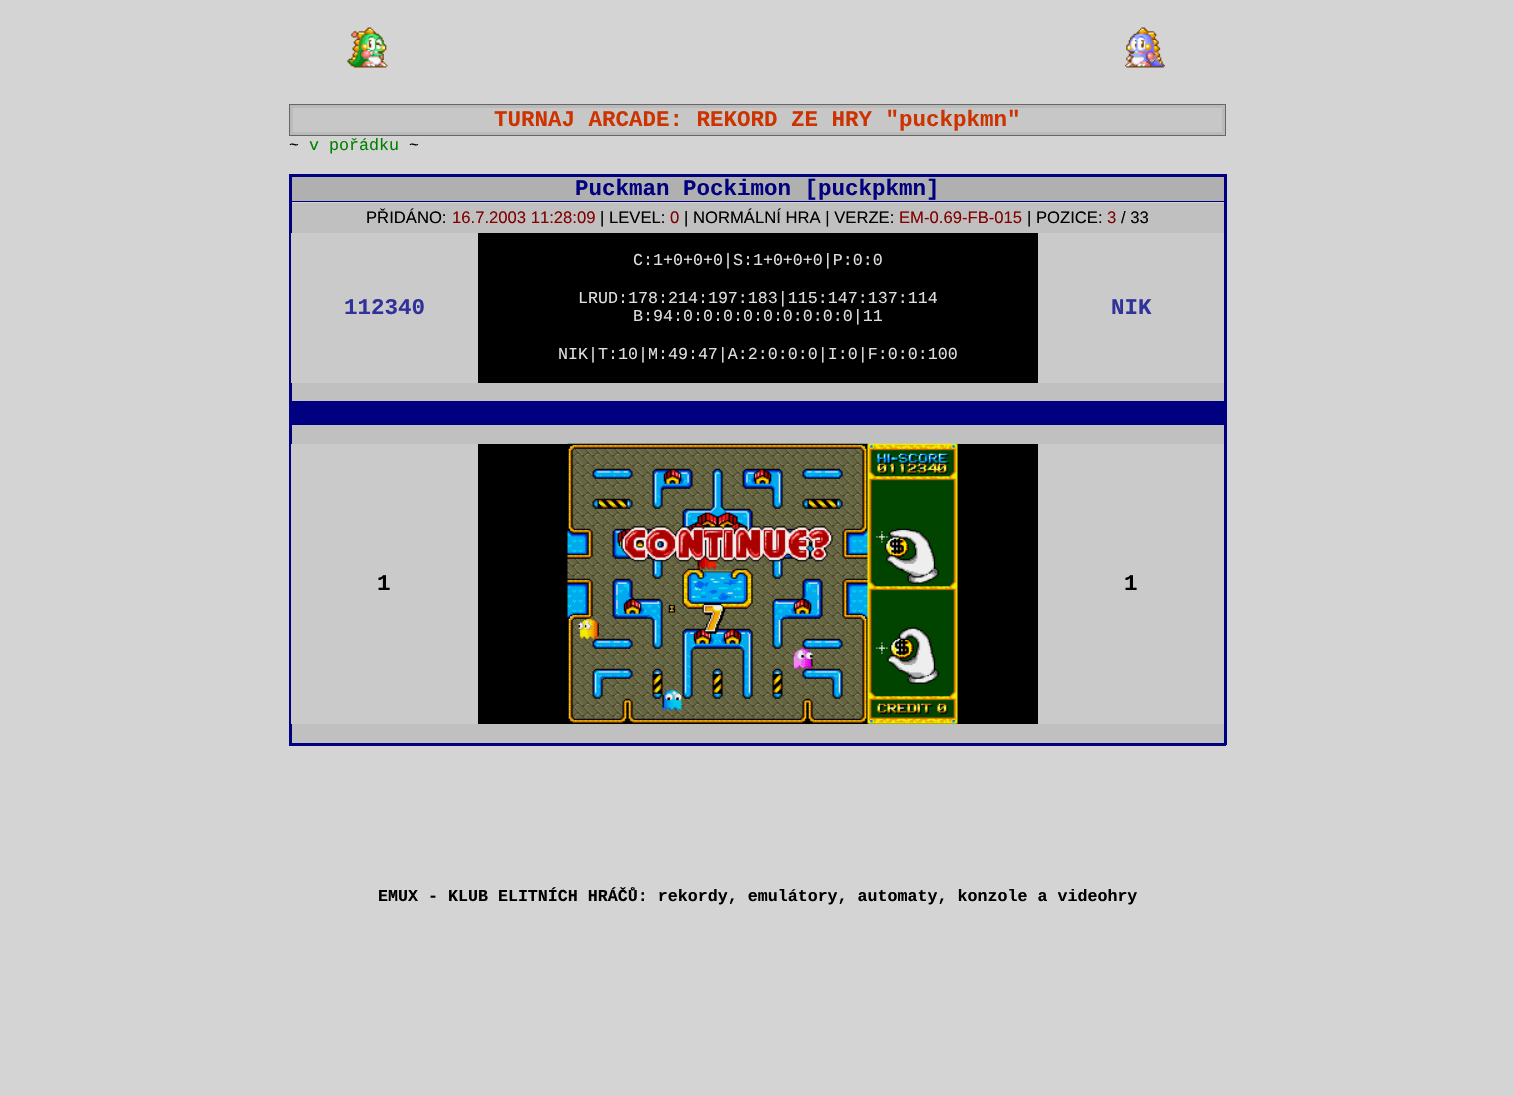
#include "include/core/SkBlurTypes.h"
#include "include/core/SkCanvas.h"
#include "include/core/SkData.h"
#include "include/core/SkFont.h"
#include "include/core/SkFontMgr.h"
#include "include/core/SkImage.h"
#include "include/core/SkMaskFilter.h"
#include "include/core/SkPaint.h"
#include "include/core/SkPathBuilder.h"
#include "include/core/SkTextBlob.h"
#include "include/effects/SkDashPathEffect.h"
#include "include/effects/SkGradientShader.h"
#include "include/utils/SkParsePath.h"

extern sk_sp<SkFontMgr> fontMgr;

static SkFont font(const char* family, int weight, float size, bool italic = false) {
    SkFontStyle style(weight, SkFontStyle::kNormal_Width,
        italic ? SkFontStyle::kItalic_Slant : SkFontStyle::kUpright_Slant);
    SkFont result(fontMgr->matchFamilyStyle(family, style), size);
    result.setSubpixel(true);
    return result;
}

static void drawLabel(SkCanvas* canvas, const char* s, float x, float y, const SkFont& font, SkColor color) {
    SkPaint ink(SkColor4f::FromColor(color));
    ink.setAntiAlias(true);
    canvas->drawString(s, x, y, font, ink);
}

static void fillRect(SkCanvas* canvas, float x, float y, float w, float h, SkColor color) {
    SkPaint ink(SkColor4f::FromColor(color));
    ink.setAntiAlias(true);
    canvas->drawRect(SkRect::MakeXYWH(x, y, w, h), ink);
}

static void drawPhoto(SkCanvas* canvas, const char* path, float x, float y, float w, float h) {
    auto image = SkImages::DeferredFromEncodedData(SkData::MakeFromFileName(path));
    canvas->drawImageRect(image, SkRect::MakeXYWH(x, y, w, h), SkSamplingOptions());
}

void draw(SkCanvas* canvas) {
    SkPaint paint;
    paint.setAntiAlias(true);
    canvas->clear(0xFFD4D4D4);
    drawPhoto(canvas, "assets/img1.png", 347, 27, 41, 41);
    drawPhoto(canvas, "assets/img2.png", 1125, 27, 40, 41);
    fillRect(canvas, 293, 108, 929, 24, 0xFFC7C7C7);
    paint.setStroke(true);
    paint.setStrokeWidth(1);
    paint.setColor(0xFF666666);
    canvas->drawRect(SkRect::MakeXYWH(289.5f, 104.5f, 936, 31), paint);
    paint.setStrokeWidth(3);
    paint.setColor(0xFFBABABA);
    canvas->drawRect(SkRect::MakeXYWH(291.5f, 106.5f, 932, 27), paint);
    SkFont font1 = font("Liberation Mono", 700, 22.5f);
    drawLabel(canvas, "TURNAJ ARCADE: REKORD ZE HRY \"puckpkmn\"", 494, 126, font1, 0xFFCC3300);
    SkFont font2 = font("Liberation Mono", 400, 16.65f);
    drawLabel(canvas, "~", 289, 150, font2, 0xFF000000);
    drawLabel(canvas, "v pořádku", 309, 150, font2, 0xFF008000);
    drawLabel(canvas, "~", 409, 150, font2, 0xFF000000);
    fillRect(canvas, 292, 177, 932, 24, 0xFFB0B0B0);
    fillRect(canvas, 289, 174, 937, 3, 0xFF000080);
    fillRect(canvas, 1224, 174, 3, 571, 0xFF000080);
    fillRect(canvas, 289, 201, 937, 1, 0xFF000080);
    fillRect(canvas, 289, 174, 3, 29, 0xFF000080);
    drawLabel(canvas, "Puckman Pockimon [puckpkmn]", 575, 195, font1, 0xFF000080);
    fillRect(canvas, 292, 203, 932, 198, 0xFFC0C0C0);
    fillRect(canvas, 289, 401, 937, 3, 0xFF000080);
    fillRect(canvas, 289, 203, 3, 201, 0xFF000080);
    SkFont font3 = font("Liberation Sans", 400, 16.65f);
    drawLabel(canvas, "PŘIDÁNO:", 366, 223, font3, 0xFF000000);
    drawLabel(canvas, "16.7.2003 11:28:09", 452, 223, font3, 0xFF800000);
    drawLabel(canvas, "| LEVEL:", 600, 223, font3, 0xFF000000);
    drawLabel(canvas, "0", 670, 223, font3, 0xFF800000);
    drawLabel(canvas, "| NORMÁLNÍ HRA | VERZE:", 684, 223, font3, 0xFF000000);
    drawLabel(canvas, "EM-0.69-FB-015", 899, 223, font3, 0xFF800000);
    drawLabel(canvas, "| POZICE:", 1027, 223, font3, 0xFF000000);
    drawLabel(canvas, "3", 1107, 223, font3, 0xFF800000);
    drawLabel(canvas, "/ 33", 1121, 223, font3, 0xFF000000);
    fillRect(canvas, 291, 233, 187, 150, 0xFFCACACA);
    drawLabel(canvas, "112340", 344, 314, font1, 0xFF31319C);
    fillRect(canvas, 478, 233, 560, 150, 0xFF000000);
    drawLabel(canvas, "C:1+0+0+0|S:1+0+0+0|P:0:0", 633, 265, font2, 0xFFDFDFDF);
    drawLabel(canvas, "LRUD:178:214:197:183|115:147:137:114", 578, 303, font2, 0xFFDFDFDF);
    drawLabel(canvas, "B:94:0:0:0:0:0:0:0:0:0|11", 633, 321, font2, 0xFFDFDFDF);
    drawLabel(canvas, "NIK|T:10|M:49:47|A:2:0:0:0|I:0|F:0:0:100", 558, 359, font2, 0xFFDFDFDF);
    fillRect(canvas, 1038, 233, 186, 150, 0xFFCACACA);
    drawLabel(canvas, "NIK", 1111, 314, font1, 0xFF31319C);
    fillRect(canvas, 289, 423, 937, 2, 0xFF000080);
    fillRect(canvas, 289, 404, 3, 21, 0xFF000080);
    fillRect(canvas, 292, 404, 932, 19, 0xFF000080);
    fillRect(canvas, 292, 425, 932, 318, 0xFFC0C0C0);
    fillRect(canvas, 289, 743, 937, 3, 0xFF000080);
    fillRect(canvas, 289, 425, 3, 320, 0xFF000080);
    fillRect(canvas, 291, 444, 187, 280, 0xFFCACACA);
    drawLabel(canvas, "1", 377, 590, font1, 0xFF000000);
    fillRect(canvas, 478, 444, 560, 280, 0xFF000000);
    drawPhoto(canvas, "assets/img3.png", 567, 443, 391, 281);
    fillRect(canvas, 1038, 444, 186, 280, 0xFFCACACA);
    drawLabel(canvas, "1", 1124, 590, font1, 0xFF000000);
    SkFont font4 = font("Liberation Mono", 700, 16.65f);
    drawLabel(canvas, "EMUX - KLUB ELITNÍCH HRÁČŮ: rekordy, emulátory, automaty, konzole a videohry", 378, 901, font4, 0xFF000000);
}
